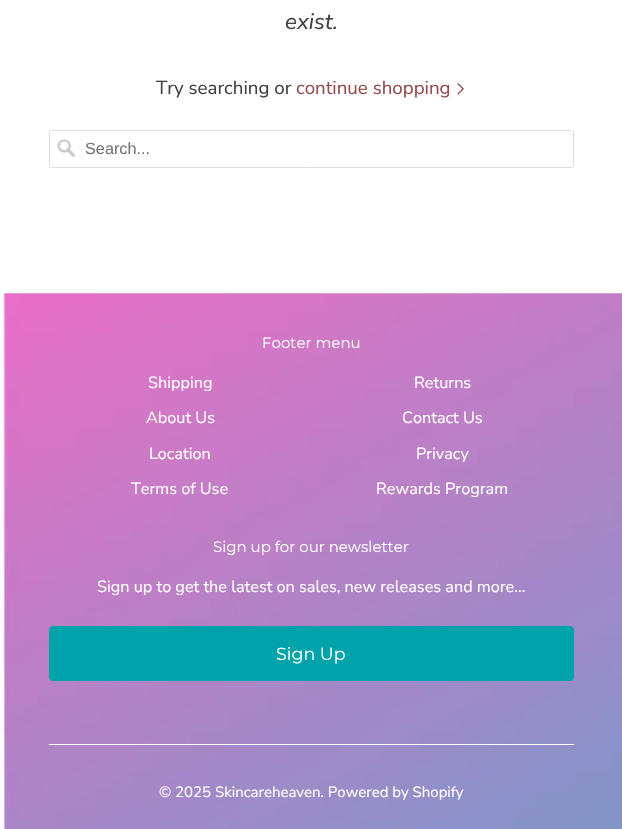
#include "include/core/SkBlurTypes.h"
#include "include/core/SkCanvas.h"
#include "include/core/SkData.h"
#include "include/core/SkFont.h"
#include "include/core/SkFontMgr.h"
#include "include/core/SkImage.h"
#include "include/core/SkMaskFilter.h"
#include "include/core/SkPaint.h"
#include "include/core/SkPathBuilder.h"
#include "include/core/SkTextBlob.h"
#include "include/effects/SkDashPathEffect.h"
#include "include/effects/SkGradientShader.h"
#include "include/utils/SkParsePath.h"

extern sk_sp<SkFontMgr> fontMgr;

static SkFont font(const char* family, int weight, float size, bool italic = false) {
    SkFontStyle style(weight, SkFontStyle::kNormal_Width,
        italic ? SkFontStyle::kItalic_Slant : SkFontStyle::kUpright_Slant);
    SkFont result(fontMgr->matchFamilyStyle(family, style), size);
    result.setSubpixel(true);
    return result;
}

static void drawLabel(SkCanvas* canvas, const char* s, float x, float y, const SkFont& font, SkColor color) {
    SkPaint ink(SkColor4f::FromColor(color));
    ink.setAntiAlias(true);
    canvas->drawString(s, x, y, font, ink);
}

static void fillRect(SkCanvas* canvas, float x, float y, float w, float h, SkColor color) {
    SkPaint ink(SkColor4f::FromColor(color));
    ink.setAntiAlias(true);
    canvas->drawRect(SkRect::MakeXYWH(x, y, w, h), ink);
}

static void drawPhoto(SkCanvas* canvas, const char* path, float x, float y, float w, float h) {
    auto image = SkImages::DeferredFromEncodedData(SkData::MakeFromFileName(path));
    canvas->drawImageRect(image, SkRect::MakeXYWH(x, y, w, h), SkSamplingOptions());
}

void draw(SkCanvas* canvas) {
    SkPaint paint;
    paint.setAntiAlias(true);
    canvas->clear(0xFFFFFFFF);
    SkFont font1 = font("Nunito Sans", 400, 22.5f, true);
    drawLabel(canvas, "exist.", 285, 29, font1, 0xFF404040);
    SkFont font2 = font("Nunito Sans", 400, 18.75f);
    drawLabel(canvas, "Try searching or", 156, 94, font2, 0xFF404040);
    drawLabel(canvas, "continue shopping", 296, 94, font2, 0xFF924A4D);
    drawPhoto(canvas, "assets/img1.png", 457, 83, 7, 12);
    drawPhoto(canvas, "assets/img2.png", 57, 139, 18, 18);
    paint.setStroke(true);
    paint.setStrokeWidth(1);
    paint.setColor(0xFFDFDFDF);
    canvas->drawRoundRect(SkRect::MakeXYWH(49.5f, 130.5f, 524, 37), 2, 2, paint);
    SkFont font3 = font("Liberation Sans", 400, 16.25f);
    drawLabel(canvas, "Search...", 85, 154, font3, 0xFF757575);
    drawPhoto(canvas, "assets/img3.png", 0, 293, 622, 536);
    SkFont font4 = font("Montserrat", 400, 15);
    drawLabel(canvas, "Footer menu", 262, 348, font4, 0xFFFFFFFF);
    SkFont font5 = font("Nunito Sans", 400, 16.25f);
    drawLabel(canvas, "Shipping", 148, 388, font5, 0xFFFFFFFF);
    drawLabel(canvas, "Returns", 414, 388, font5, 0xFFFFFFFF);
    drawLabel(canvas, "About Us", 146, 423, font5, 0xFFFFFFFF);
    drawLabel(canvas, "Contact Us", 402, 423, font5, 0xFFFFFFFF);
    drawLabel(canvas, "Location", 149, 459, font5, 0xFFFFFFFF);
    drawLabel(canvas, "Privacy", 416, 459, font5, 0xFFFFFFFF);
    drawLabel(canvas, "Terms of Use", 131, 494, font5, 0xFFFFFFFF);
    drawLabel(canvas, "Rewards Program", 376, 494, font5, 0xFFFFFFFF);
    drawLabel(canvas, "Sign up for our newsletter", 213, 552, font4, 0xFFFFFFFF);
    drawLabel(canvas, "Sign up to get the latest on sales, new releases and more…", 97, 592, font5, 0xFFFFFFFF);
    paint.setStroke(false);
    paint.setColor(0xFF00A3AA);
    canvas->drawRoundRect(SkRect::MakeXYWH(49.5f, 626.5f, 524, 54), 3.5f, 3.5f, paint);
    paint.setStroke(true);
    canvas->drawRoundRect(SkRect::MakeXYWH(49.5f, 626.5f, 524, 54), 3.5f, 3.5f, paint);
    SkFont font6 = font("Montserrat", 400, 17.5f);
    drawLabel(canvas, "Sign Up", 276, 660, font6, 0xFFFFFFFF);
    fillRect(canvas, 49, 744, 525, 1, 0xFFFFFFFF);
    SkFont font7 = font("Nunito Sans", 400, 15);
    drawLabel(canvas, "© 2025 Skincareheaven. Powered by Shopify", 159, 797, font7, 0xFFFFFFFF);
}
